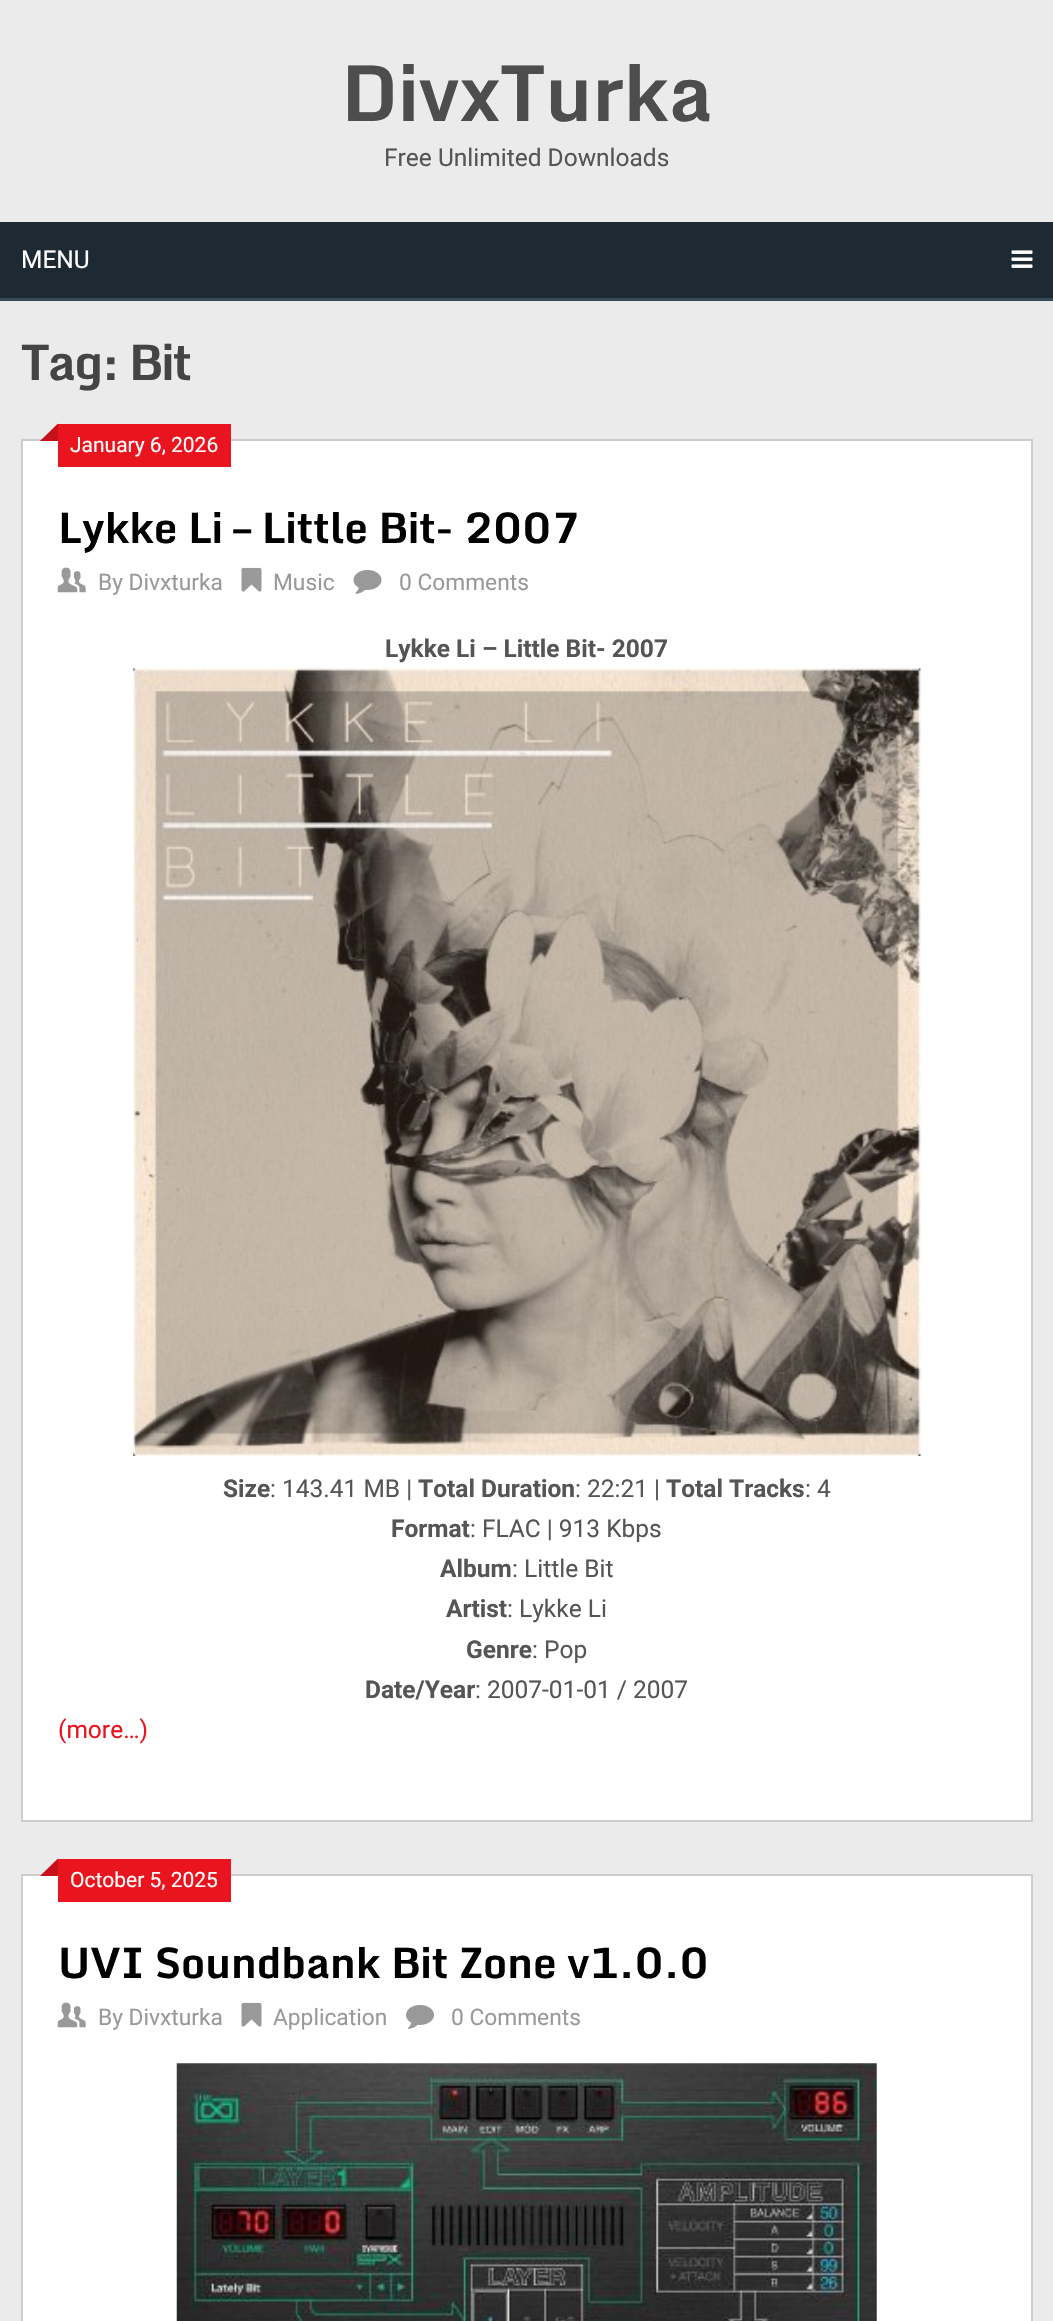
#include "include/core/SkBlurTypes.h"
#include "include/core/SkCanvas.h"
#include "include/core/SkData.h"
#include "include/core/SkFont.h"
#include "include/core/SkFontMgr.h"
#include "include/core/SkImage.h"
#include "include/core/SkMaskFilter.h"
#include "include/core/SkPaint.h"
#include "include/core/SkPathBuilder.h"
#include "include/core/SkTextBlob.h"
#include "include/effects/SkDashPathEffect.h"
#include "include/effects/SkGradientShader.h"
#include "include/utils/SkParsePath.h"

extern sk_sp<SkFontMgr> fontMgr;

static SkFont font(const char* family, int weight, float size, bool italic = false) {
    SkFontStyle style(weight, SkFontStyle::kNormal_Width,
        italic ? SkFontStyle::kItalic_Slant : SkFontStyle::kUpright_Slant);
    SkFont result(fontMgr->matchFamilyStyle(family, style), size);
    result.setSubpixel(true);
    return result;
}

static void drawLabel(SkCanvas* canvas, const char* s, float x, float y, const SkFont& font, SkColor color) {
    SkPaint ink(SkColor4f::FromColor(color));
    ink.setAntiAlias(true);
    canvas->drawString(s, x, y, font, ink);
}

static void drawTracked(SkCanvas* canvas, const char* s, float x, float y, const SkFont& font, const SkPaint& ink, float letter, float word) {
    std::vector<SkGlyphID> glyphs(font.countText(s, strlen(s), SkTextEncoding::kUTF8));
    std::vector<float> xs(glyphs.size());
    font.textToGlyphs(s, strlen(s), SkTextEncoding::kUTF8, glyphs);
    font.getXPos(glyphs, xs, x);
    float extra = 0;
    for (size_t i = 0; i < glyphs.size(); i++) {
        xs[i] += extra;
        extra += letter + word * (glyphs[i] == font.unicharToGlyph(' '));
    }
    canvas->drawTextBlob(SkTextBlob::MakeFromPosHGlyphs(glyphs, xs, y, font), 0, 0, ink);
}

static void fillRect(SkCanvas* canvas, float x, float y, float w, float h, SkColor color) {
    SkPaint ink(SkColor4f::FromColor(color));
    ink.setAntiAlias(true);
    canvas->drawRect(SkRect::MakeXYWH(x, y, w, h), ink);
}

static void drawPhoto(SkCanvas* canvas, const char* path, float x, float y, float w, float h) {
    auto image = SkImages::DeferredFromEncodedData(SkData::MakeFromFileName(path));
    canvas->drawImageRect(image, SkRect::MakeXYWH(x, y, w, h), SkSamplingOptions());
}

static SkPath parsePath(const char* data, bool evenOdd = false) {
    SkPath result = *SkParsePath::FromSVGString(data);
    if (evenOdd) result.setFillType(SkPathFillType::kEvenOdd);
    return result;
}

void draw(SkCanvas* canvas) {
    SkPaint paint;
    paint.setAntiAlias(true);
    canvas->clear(0xFFEBEBEB);
    SkFont font1 = font("Monda", 700, 77);
    drawLabel(canvas, "DivxTurka", 341, 121, font1, 0xFF4D4D4D);
    SkFont font2 = font("Roboto", 400, 24.5f);
    drawLabel(canvas, "Free Unlimited Downloads", 384, 166, font2, 0xFF555555);
    fillRect(canvas, 0, 298, 1053, 3, 0xFF364956);
    fillRect(canvas, 0, 222, 1053, 76, 0xFF1D2933);
    drawLabel(canvas, "MENU", 21, 268, font2, 0xFFFFFFFF);
    drawPhoto(canvas, "assets/img1.png", 1011, 250, 22, 18);
    SkFont font3 = font("Monda", 700, 49);
    paint.setColor(0xFF444444);
    drawTracked(canvas, "Tag: Bit", 21, 380, font3, paint, -1.75f, 0);
    paint.setColor(0xFFFFFFFF);
    canvas->drawRect(SkRect::MakeXYWH(22, 440, 1010, 1381), paint);
    paint.setStroke(true);
    paint.setStrokeWidth(2);
    paint.setColor(0xFFCDCDCD);
    canvas->drawRect(SkRect::MakeXYWH(22, 440, 1010, 1381), paint);
    fillRect(canvas, 58, 424, 173, 43, 0xFFEA141F);
    paint.setStroke(false);
    paint.setColor(0xFFEA141F);
    canvas->drawPath(parsePath("M58 441H40L58 423.5Z"), paint);
    paint.setColor(0x26000000);
    canvas->drawPath(parsePath("M58 441H40L58 423.5Z"), paint);
    SkFont font4 = font("Roboto", 400, 21);
    drawLabel(canvas, "January 6, 2026", 70, 452, font4, 0xFFFFFFFF);
    SkFont font5 = font("Monda", 700, 42);
    drawLabel(canvas, "Lykke Li – Little Bit- 2007", 58, 543, font5, 0xFF000000);
    drawPhoto(canvas, "assets/img2.png", 57, 567, 29, 26);
    SkFont font6 = font("Roboto", 400, 22.75f);
    drawLabel(canvas, "By Divxturka", 98, 590, font6, 0xFF999999);
    drawPhoto(canvas, "assets/img3.png", 241, 567, 21, 25);
    drawLabel(canvas, "Music", 273, 590, font6, 0xFF999999);
    drawPhoto(canvas, "assets/img4.png", 353, 570, 29, 24);
    drawLabel(canvas, "0 Comments", 399, 590, font6, 0xFF999999);
    SkFont font7 = font("Roboto", 700, 24.5f);
    drawLabel(canvas, "Lykke Li – Little Bit- 2007", 385, 657, font7, 0xFF555555);
    drawPhoto(canvas, "assets/img5.png", 133, 668, 788, 788);
    drawLabel(canvas, "Size", 223, 1497, font7, 0xFF555555);
    drawLabel(canvas, ": 143.41 MB |", 270, 1497, font2, 0xFF555555);
    drawLabel(canvas, "Total Duration", 418, 1497, font7, 0xFF555555);
    drawLabel(canvas, ": 22:21 |", 575, 1497, font2, 0xFF555555);
    drawLabel(canvas, "Total Tracks", 666, 1497, font7, 0xFF555555);
    drawLabel(canvas, ": 4", 805, 1497, font2, 0xFF555555);
    drawLabel(canvas, "Format", 391, 1537, font7, 0xFF555555);
    drawLabel(canvas, ": FLAC | 913 Kbps", 470, 1537, font2, 0xFF555555);
    drawLabel(canvas, "Album", 440, 1577, font7, 0xFF555555);
    drawLabel(canvas, ": Little Bit", 512, 1577, font2, 0xFF555555);
    drawLabel(canvas, "Artist", 446, 1617, font7, 0xFF555555);
    drawLabel(canvas, ": Lykke Li", 507, 1617, font2, 0xFF555555);
    drawLabel(canvas, "Genre", 466, 1658, font7, 0xFF555555);
    drawLabel(canvas, ": Pop", 532, 1658, font2, 0xFF555555);
    drawLabel(canvas, "Date/Year", 365, 1698, font7, 0xFF555555);
    drawLabel(canvas, ": 2007-01-01 / 2007", 475, 1698, font2, 0xFF555555);
    drawLabel(canvas, "(more…)", 58, 1738, font2, 0xFFEA141F);
    paint.setColor(0xFFFFFFFF);
    canvas->drawRect(SkRect::MakeXYWH(22, 1875, 1010, 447), paint);
    paint.setStroke(true);
    paint.setColor(0xFFCDCDCD);
    canvas->drawRect(SkRect::MakeXYWH(22, 1875, 1010, 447), paint);
    fillRect(canvas, 58, 1859, 173, 43, 0xFFEA141F);
    paint.setStroke(false);
    paint.setColor(0xFFEA141F);
    canvas->drawPath(parsePath("M58 1876H40L58 1858.5Z"), paint);
    paint.setColor(0x26000000);
    canvas->drawPath(parsePath("M58 1876H40L58 1858.5Z"), paint);
    drawLabel(canvas, "October 5, 2025", 70, 1887, font4, 0xFFFFFFFF);
    drawLabel(canvas, "UVI Soundbank Bit Zone v1.0.0", 58, 1978, font5, 0xFF000000);
    drawPhoto(canvas, "assets/img2.png", 57, 2002, 29, 26);
    drawLabel(canvas, "By Divxturka", 98, 2025, font6, 0xFF999999);
    drawPhoto(canvas, "assets/img3.png", 241, 2002, 21, 25);
    drawLabel(canvas, "Application", 273, 2025, font6, 0xFF999999);
    drawPhoto(canvas, "assets/img6.png", 406, 2005, 28, 24);
    drawLabel(canvas, "0 Comments", 451, 2025, font6, 0xFF999999);
    drawPhoto(canvas, "assets/img7.png", 176, 2063, 701, 258);
}
